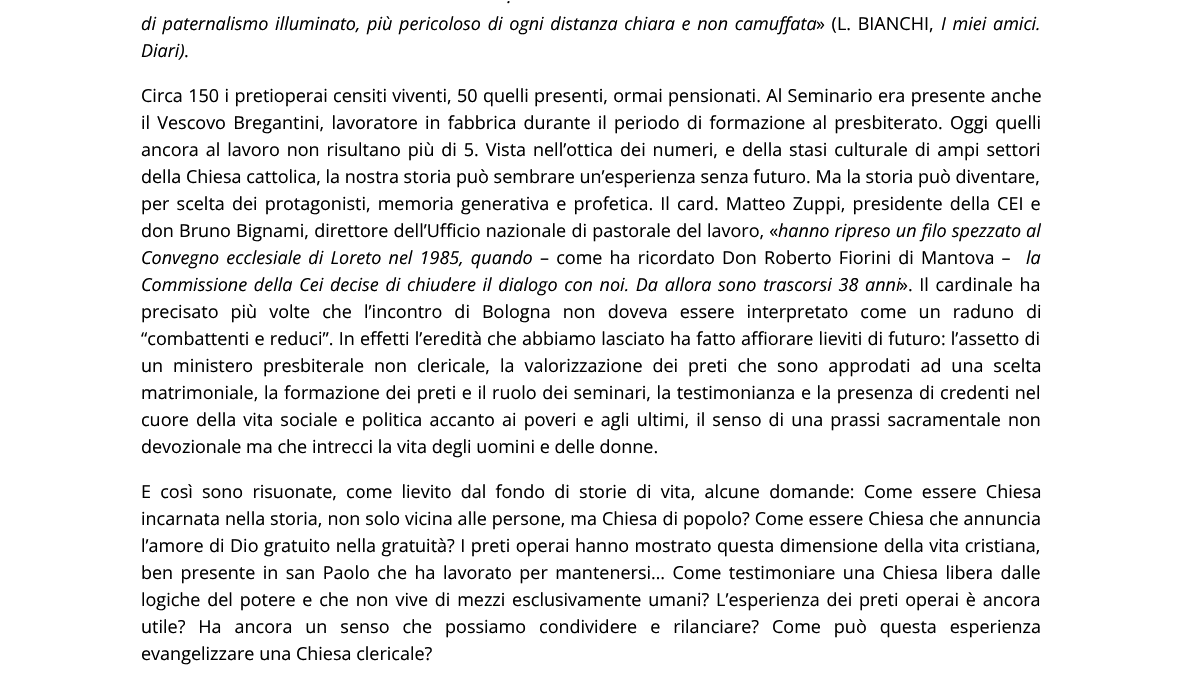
#include "include/core/SkBlurTypes.h"
#include "include/core/SkCanvas.h"
#include "include/core/SkData.h"
#include "include/core/SkFont.h"
#include "include/core/SkFontMgr.h"
#include "include/core/SkImage.h"
#include "include/core/SkMaskFilter.h"
#include "include/core/SkPaint.h"
#include "include/core/SkPathBuilder.h"
#include "include/core/SkTextBlob.h"
#include "include/effects/SkDashPathEffect.h"
#include "include/effects/SkGradientShader.h"
#include "include/utils/SkParsePath.h"

extern sk_sp<SkFontMgr> fontMgr;

static SkFont font(const char* family, int weight, float size, bool italic = false) {
    SkFontStyle style(weight, SkFontStyle::kNormal_Width,
        italic ? SkFontStyle::kItalic_Slant : SkFontStyle::kUpright_Slant);
    SkFont result(fontMgr->matchFamilyStyle(family, style), size);
    result.setSubpixel(true);
    return result;
}

static void drawLabel(SkCanvas* canvas, const char* s, float x, float y, const SkFont& font, SkColor color) {
    SkPaint ink(SkColor4f::FromColor(color));
    ink.setAntiAlias(true);
    canvas->drawString(s, x, y, font, ink);
}

static void drawTracked(SkCanvas* canvas, const char* s, float x, float y, const SkFont& font, const SkPaint& ink, float letter, float word) {
    std::vector<SkGlyphID> glyphs(font.countText(s, strlen(s), SkTextEncoding::kUTF8));
    std::vector<float> xs(glyphs.size());
    font.textToGlyphs(s, strlen(s), SkTextEncoding::kUTF8, glyphs);
    font.getXPos(glyphs, xs, x);
    float extra = 0;
    for (size_t i = 0; i < glyphs.size(); i++) {
        xs[i] += extra;
        extra += letter + word * (glyphs[i] == font.unicharToGlyph(' '));
    }
    canvas->drawTextBlob(SkTextBlob::MakeFromPosHGlyphs(glyphs, xs, y, font), 0, 0, ink);
}

void draw(SkCanvas* canvas) {
    SkPaint paint;
    paint.setAntiAlias(true);
    canvas->clear(0xFFFFFFFF);
    SkFont font1 = font("Open Sans", 400, 18, true);
    paint.setColor(0xFF000000);
    drawTracked(canvas, ".", 507, 3, font1, paint, 0, 1);
    drawTracked(canvas, "di paternalismo illuminato, più pericoloso di ogni distanza chiara e non camuffata", 141, 30, font1, paint, 0, 2);
    SkFont font2 = font("Open Sans", 400, 18);
    drawTracked(canvas, "» (L. BIANCHI,", 816, 30, font2, paint, 0, 2);
    drawTracked(canvas, "I miei amici.", 941, 30, font1, paint, 0, 2);
    drawLabel(canvas, "Diari)", 141, 57, font1, 0xFF000000);
    drawLabel(canvas, ".", 184, 57, font2, 0xFF000000);
    drawTracked(canvas, "Circa 150 i pretioperai censiti viventi, 50 quelli presenti, ormai pensionati. Al Seminario era presente anche", 141, 102, font2, paint, 0, 0.7f);
    drawTracked(canvas, "il Vescovo Bregantini, lavoratore in fabbrica durante il periodo di formazione al presbiterato. Oggi quelli", 141, 129, font2, paint, 0, 2.5f);
    drawTracked(canvas, "ancora al lavoro non risultano più di 5. Vista nell’ottica dei numeri, e della stasi culturale di ampi settori", 141, 156, font2, paint, 0, 2.25f);
    drawLabel(canvas, "della Chiesa cattolica, la nostra storia può sembrare un’esperienza senza futuro. Ma la storia può diventare,", 141, 183, font2, 0xFF000000);
    drawTracked(canvas, "per scelta dei protagonisti, memoria generativa e profetica. Il card. Matteo Zuppi, presidente della CEI e", 141, 210, font2, paint, 0, 2.4f);
    drawTracked(canvas, "don Bruno Bignami, direttore dell’Ufficio nazionale di pastorale del lavoro, «", 141, 237, font2, paint, 0, 0.5f);
    drawTracked(canvas, "hanno ripreso un filo spezzato", 778, 237, font1, paint, 0, 0.5f);
    drawLabel(canvas, "al", 1026, 237, font1, 0xFF000000);
    drawTracked(canvas, "Convegno ecclesiale di Loreto nel 1985, quando", 141, 264, font1, paint, 0, 2.5f);
    drawTracked(canvas, "– come ha ricordato Don Roberto Fiorini di Mantova –", 540, 264, font2, paint, 0, 2.5f);
    drawLabel(canvas, "la", 1026, 264, font1, 0xFF000000);
    drawTracked(canvas, "Commissione della Cei decise di chiudere il dialogo con noi. Da allora sono trascorsi 38 anni", 141, 291, font1, paint, 0, 2);
    drawTracked(canvas, "». Il cardinale ha", 899, 291, font2, paint, 0, 2);
    drawTracked(canvas, "precisato più volte che l’incontro di Bologna non doveva essere interpretato come un raduno di", 141, 318, font2, paint, 0, 7.4f);
    drawTracked(canvas, "“combattenti e reduci”. In effetti l’eredità che abbiamo lasciato ha fatto affiorare lieviti di futuro: l’assetto di", 141, 345, font2, paint, 0, 0.5f);
    drawTracked(canvas, "un ministero presbiterale non clericale, la valorizzazione dei preti che sono approdati ad una scelta", 141, 372, font2, paint, 0, 5.25f);
    drawTracked(canvas, "matrimoniale, la formazione dei preti e il ruolo dei seminari, la testimonianza e la presenza di credenti nel", 141, 399, font2, paint, 0, 0.9f);
    drawTracked(canvas, "cuore della vita sociale e politica accanto ai poveri e agli ultimi, il senso di una prassi sacramentale non", 141, 426, font2, paint, 0, 2.4f);
    drawLabel(canvas, "devozionale ma che intrecci la vita degli uomini e delle donne.", 141, 453, font2, 0xFF000000);
    drawTracked(canvas, "E così sono risuonate, come lievito dal fondo di storie di vita, alcune domande: Come essere Chiesa", 141, 498, font2, paint, 0, 4.5f);
    drawTracked(canvas, "incarnata nella storia, non solo vicina alle persone, ma Chiesa di popolo? Come essere Chiesa che annuncia", 141, 525, font2, paint, 0, 0.25f);
    drawTracked(canvas, "l’amore di Dio gratuito nella gratuità? I preti operai hanno mostrato questa dimensione della vita cristiana,", 141, 552, font2, paint, 0, 0.8f);
    drawTracked(canvas, "ben presente in san Paolo che ha lavorato per mantenersi… Come testimoniare una Chiesa libera dalle", 141, 579, font2, paint, 0, 2.75f);
    drawTracked(canvas, "logiche del potere e che non vive di mezzi esclusivamente umani? L’esperienza dei preti operai è ancora", 141, 606, font2, paint, 0, 2.1f);
    drawTracked(canvas, "utile? Ha ancora un senso che possiamo condividere e rilanciare? Come può questa esperienza", 141, 633, font2, paint, 0, 8.25f);
    drawLabel(canvas, "evangelizzare una Chiesa clericale?", 141, 660, font2, 0xFF000000);
}
